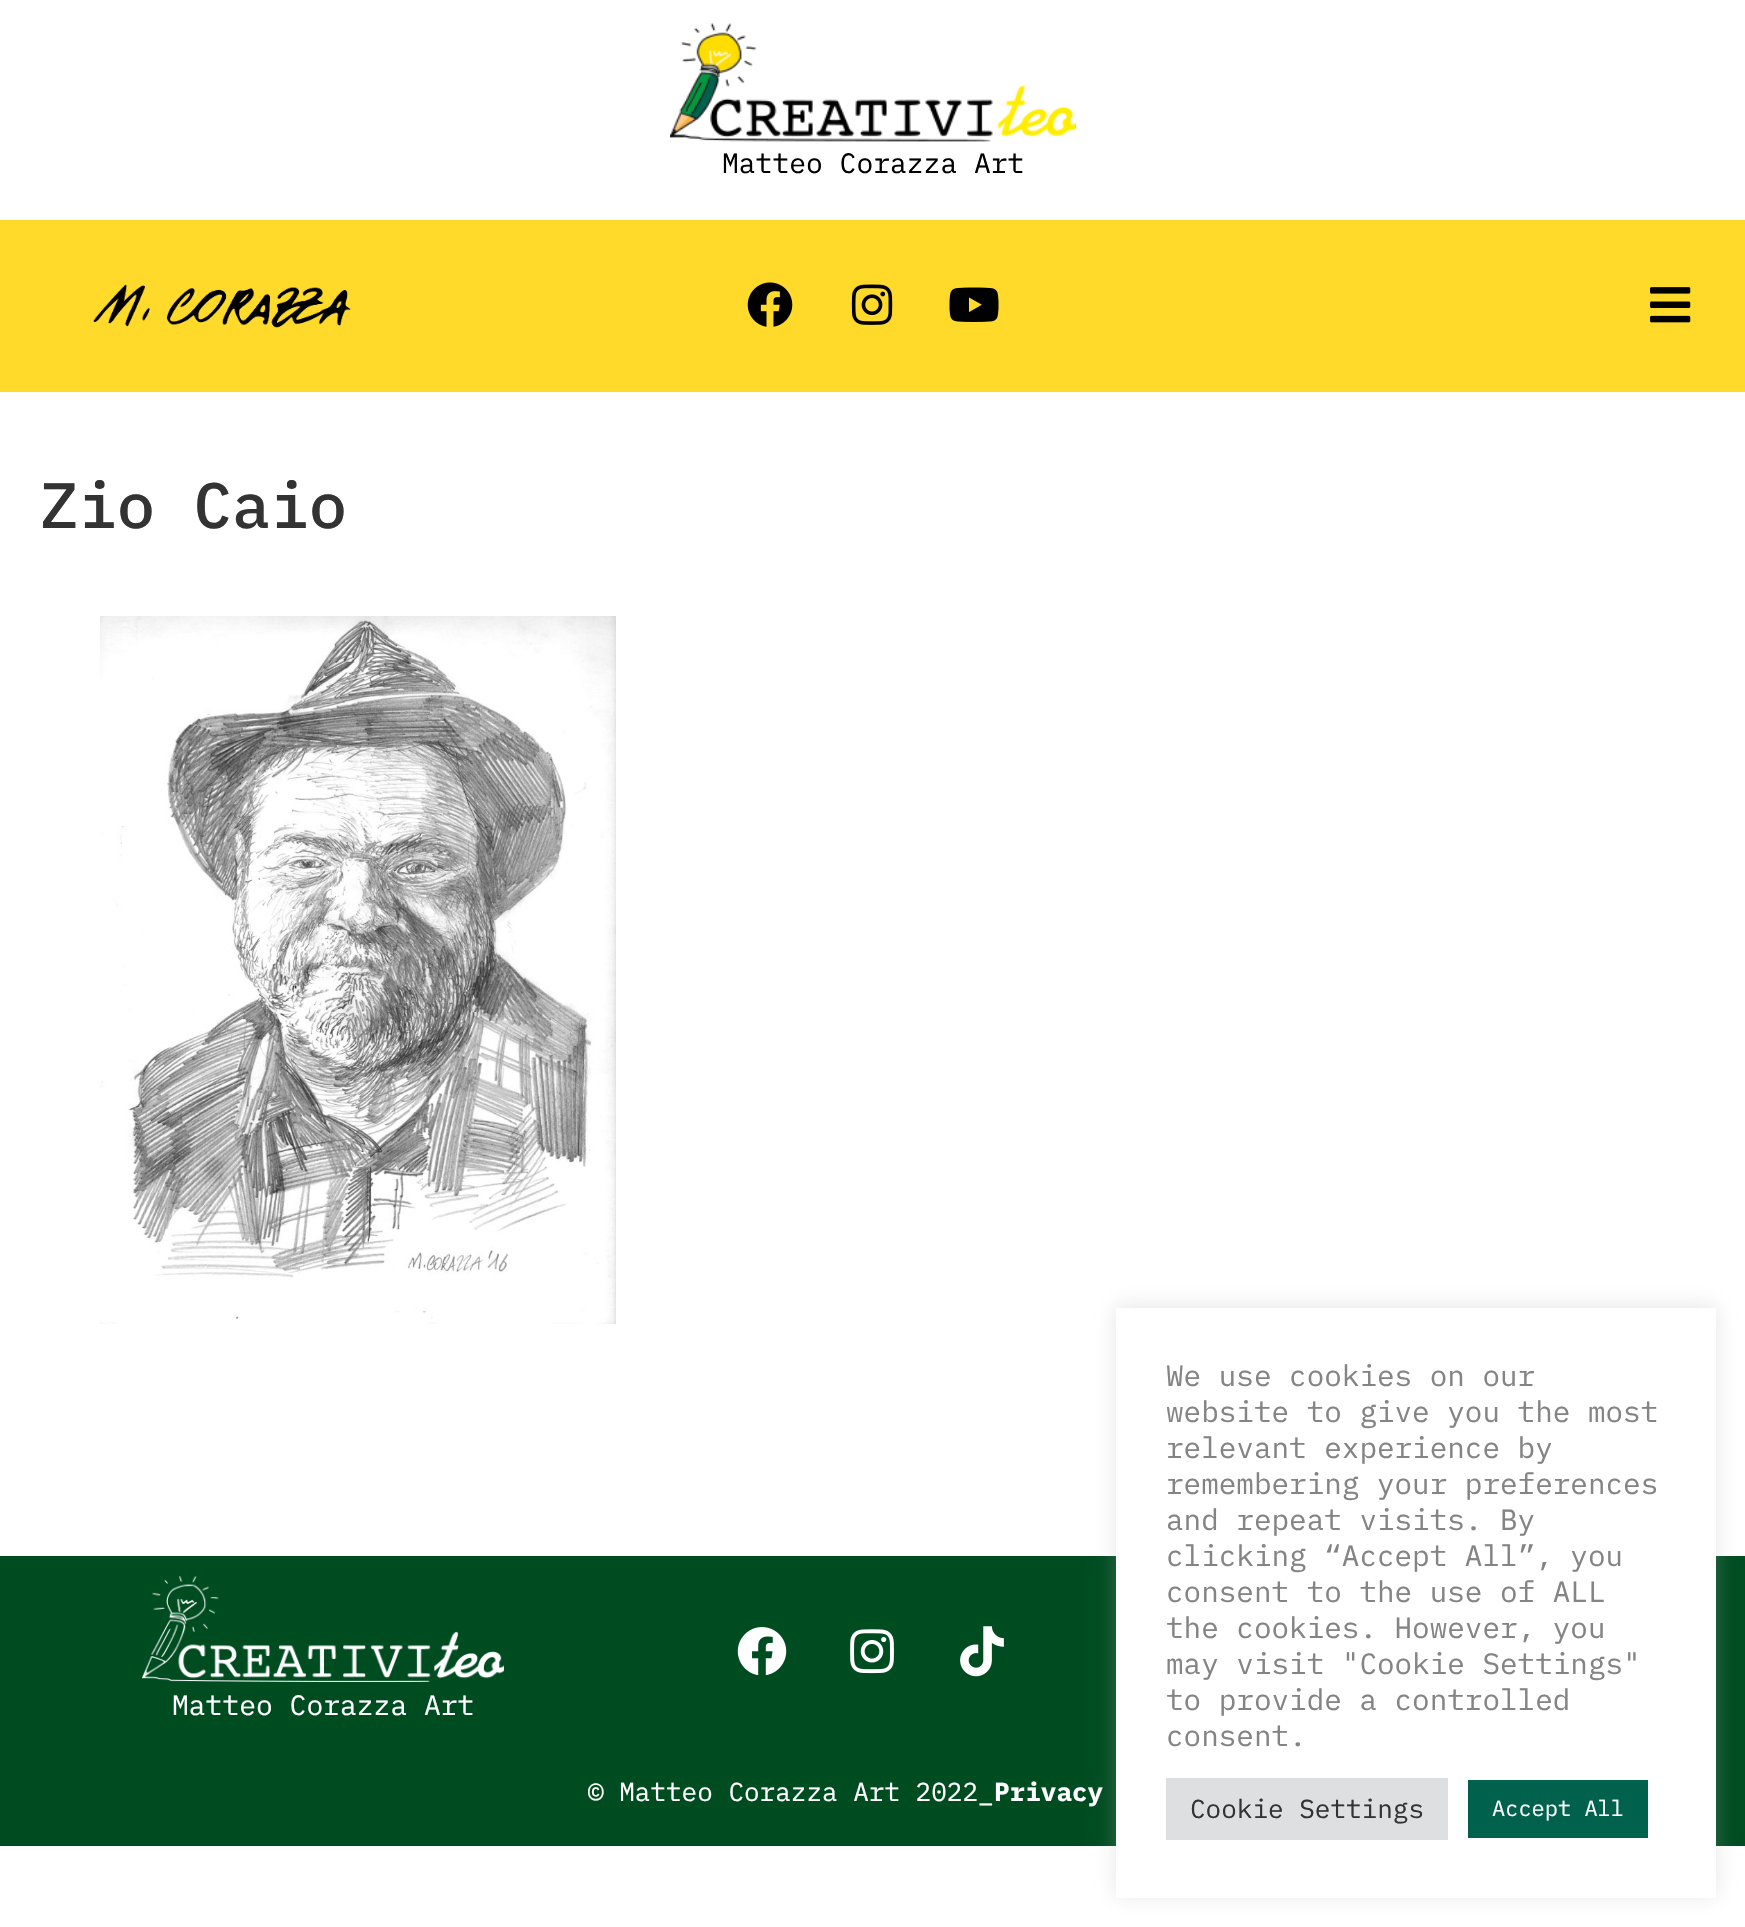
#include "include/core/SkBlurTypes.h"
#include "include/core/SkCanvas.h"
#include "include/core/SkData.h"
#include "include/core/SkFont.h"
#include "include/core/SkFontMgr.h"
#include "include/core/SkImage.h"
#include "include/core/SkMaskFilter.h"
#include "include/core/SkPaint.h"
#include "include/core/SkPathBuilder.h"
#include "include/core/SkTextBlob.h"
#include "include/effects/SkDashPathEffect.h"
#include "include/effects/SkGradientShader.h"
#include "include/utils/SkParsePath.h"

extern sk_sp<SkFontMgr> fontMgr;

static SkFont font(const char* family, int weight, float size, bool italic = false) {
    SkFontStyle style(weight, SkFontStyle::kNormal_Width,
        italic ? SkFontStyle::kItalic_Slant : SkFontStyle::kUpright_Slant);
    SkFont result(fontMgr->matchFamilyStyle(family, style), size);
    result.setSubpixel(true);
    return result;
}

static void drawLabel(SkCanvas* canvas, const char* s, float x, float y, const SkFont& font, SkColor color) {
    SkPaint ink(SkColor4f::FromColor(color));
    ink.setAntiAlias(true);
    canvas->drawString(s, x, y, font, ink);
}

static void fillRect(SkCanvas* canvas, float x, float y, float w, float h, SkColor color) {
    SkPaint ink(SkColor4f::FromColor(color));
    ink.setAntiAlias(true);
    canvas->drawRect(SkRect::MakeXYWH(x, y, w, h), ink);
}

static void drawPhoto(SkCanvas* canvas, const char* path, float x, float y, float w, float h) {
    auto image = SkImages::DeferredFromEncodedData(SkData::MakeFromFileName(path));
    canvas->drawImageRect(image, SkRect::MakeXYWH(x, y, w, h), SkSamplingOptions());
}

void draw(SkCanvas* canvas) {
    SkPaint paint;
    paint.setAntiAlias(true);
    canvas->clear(0xFFFFFFFF);
    drawPhoto(canvas, "assets/img1.png", 670, 23, 406, 119);
    SkFont font1 = font("IBM Plex Mono", 400, 28);
    drawLabel(canvas, "Matteo Corazza Art", 722, 173, font1, 0xFF000000);
    fillRect(canvas, 0, 220, 1745, 172, 0xFFFFDA2B);
    drawPhoto(canvas, "assets/img2.png", 93, 284, 258, 44);
    drawPhoto(canvas, "assets/img3.png", 747, 282, 46, 45);
    drawPhoto(canvas, "assets/img4.png", 851, 284, 42, 41);
    drawPhoto(canvas, "assets/img5.png", 949, 287, 50, 35);
    drawPhoto(canvas, "assets/img6.png", 1650, 287, 41, 36);
    SkFont font2 = font("IBM Plex Mono", 500, 64);
    drawLabel(canvas, "Zio Caio", 40, 528, font2, 0xFF333333);
    drawPhoto(canvas, "assets/img7.png", 100, 616, 516, 708);
    fillRect(canvas, 0, 1556, 1745, 290, 0xFF004C21);
    drawPhoto(canvas, "assets/img8.png", 737, 1627, 50, 49);
    drawPhoto(canvas, "assets/img9.png", 850, 1629, 44, 45);
    drawPhoto(canvas, "assets/img10.png", 960, 1626, 44, 51);
    drawPhoto(canvas, "assets/img11.png", 142, 1576, 362, 106);
    drawLabel(canvas, "Matteo Corazza Art", 172, 1715, font1, 0xFFFFFFFF);
    SkFont font3 = font("IBM Plex Mono", 400, 26);
    drawLabel(canvas, "© Matteo Corazza Art 2022_", 588, 1801, font3, 0xFFFFFFFF);
    SkFont font4 = font("IBM Plex Mono", 700, 26);
    drawLabel(canvas, "Privacy", 994, 1801, font4, 0xFFFFFFFF);
    paint.setColor(0x4DACABAB);
    paint.setMaskFilter(SkMaskFilter::MakeBlur(kNormal_SkBlurStyle, 10));
    canvas->drawRect(SkRect::MakeXYWH(1116, 1306, 600, 590), paint);
    paint.setMaskFilter(nullptr);
    fillRect(canvas, 1116, 1308, 600, 590, 0xFFFFFFFF);
    SkFont font5 = font("IBM Plex Mono", 400, 29.3f);
    drawLabel(canvas, "We use cookies on our", 1166, 1386, font5, 0xFF848484);
    drawLabel(canvas, "website to give you the most", 1166, 1422, font5, 0xFF848484);
    drawLabel(canvas, "relevant experience by", 1166, 1458, font5, 0xFF848484);
    drawLabel(canvas, "remembering your preferences", 1166, 1494, font5, 0xFF848484);
    drawLabel(canvas, "and repeat visits. By", 1166, 1530, font5, 0xFF848484);
    drawLabel(canvas, "clicking “Accept All”, you", 1166, 1566, font5, 0xFF848484);
    drawLabel(canvas, "consent to the use of ALL", 1166, 1602, font5, 0xFF848484);
    drawLabel(canvas, "the cookies. However, you", 1166, 1638, font5, 0xFF848484);
    drawLabel(canvas, "may visit \"Cookie Settings\"", 1166, 1674, font5, 0xFF848484);
    drawLabel(canvas, "to provide a controlled", 1166, 1710, font5, 0xFF848484);
    drawLabel(canvas, "consent.", 1166, 1746, font5, 0xFF848484);
    fillRect(canvas, 1166, 1778, 282, 62, 0xFFDEDFE0);
    drawLabel(canvas, "Cookie Settings", 1190, 1818, font3, 0xFF333333);
    fillRect(canvas, 1468, 1780, 180, 58, 0xFF00614D);
    SkFont font6 = font("IBM Plex Mono", 400, 22);
    drawLabel(canvas, "Accept All", 1492, 1816, font6, 0xFFFFFFFF);
}
